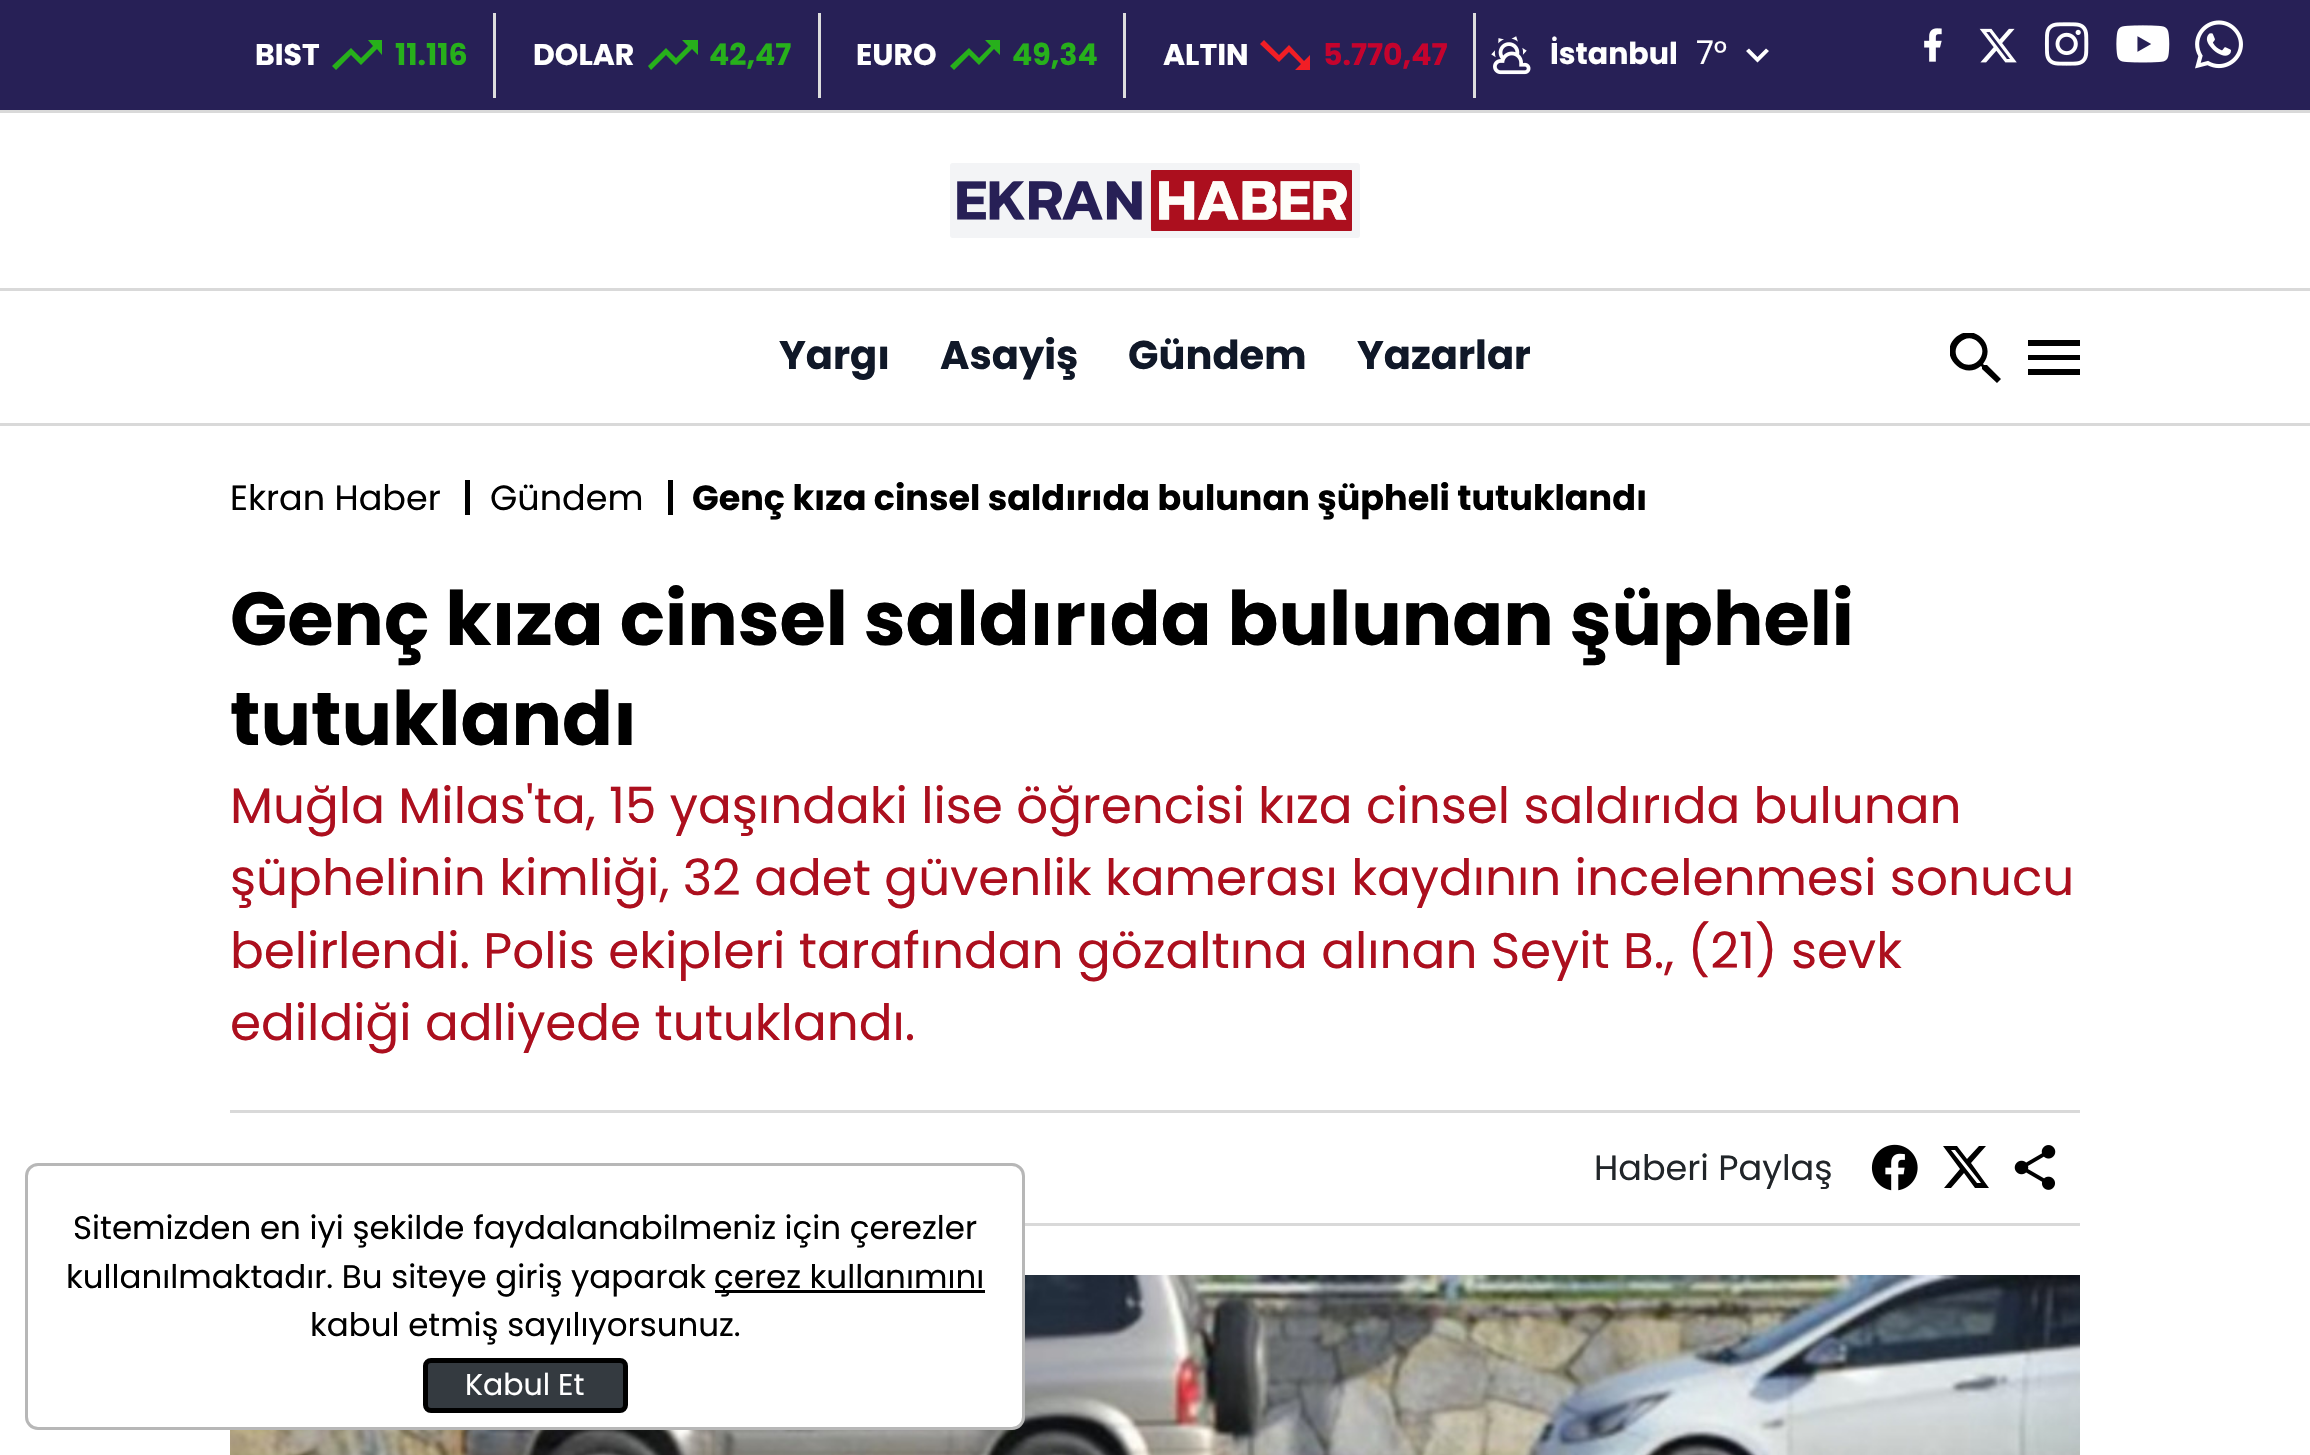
#include "include/core/SkBlurTypes.h"
#include "include/core/SkCanvas.h"
#include "include/core/SkData.h"
#include "include/core/SkFont.h"
#include "include/core/SkFontMgr.h"
#include "include/core/SkImage.h"
#include "include/core/SkMaskFilter.h"
#include "include/core/SkPaint.h"
#include "include/core/SkPathBuilder.h"
#include "include/core/SkTextBlob.h"
#include "include/effects/SkDashPathEffect.h"
#include "include/effects/SkGradientShader.h"
#include "include/utils/SkParsePath.h"

extern sk_sp<SkFontMgr> fontMgr;

static SkFont font(const char* family, int weight, float size, bool italic = false) {
    SkFontStyle style(weight, SkFontStyle::kNormal_Width,
        italic ? SkFontStyle::kItalic_Slant : SkFontStyle::kUpright_Slant);
    SkFont result(fontMgr->matchFamilyStyle(family, style), size);
    result.setSubpixel(true);
    return result;
}

static void drawLabel(SkCanvas* canvas, const char* s, float x, float y, const SkFont& font, SkColor color) {
    SkPaint ink(SkColor4f::FromColor(color));
    ink.setAntiAlias(true);
    canvas->drawString(s, x, y, font, ink);
}

static void fillRect(SkCanvas* canvas, float x, float y, float w, float h, SkColor color) {
    SkPaint ink(SkColor4f::FromColor(color));
    ink.setAntiAlias(true);
    canvas->drawRect(SkRect::MakeXYWH(x, y, w, h), ink);
}

static void drawPhoto(SkCanvas* canvas, const char* path, float x, float y, float w, float h) {
    auto image = SkImages::DeferredFromEncodedData(SkData::MakeFromFileName(path));
    canvas->drawImageRect(image, SkRect::MakeXYWH(x, y, w, h), SkSamplingOptions());
}

static SkPath parsePath(const char* data, bool evenOdd = false) {
    SkPath result = *SkParsePath::FromSVGString(data);
    if (evenOdd) result.setFillType(SkPathFillType::kEvenOdd);
    return result;
}

void draw(SkCanvas* canvas) {
    SkPaint paint;
    paint.setAntiAlias(true);
    canvas->clear(0xFFFFFFFF);
    fillRect(canvas, 0, 0, 2310, 110, 0xFF272056);
    fillRect(canvas, 0, 110, 2310, 3, 0xFFD9D9D9);
    fillRect(canvas, 493, 13, 3, 85, 0xFFDDDDDD);
    SkFont font1 = font("Poppins", 700, 30);
    drawLabel(canvas, "BIST", 255, 65, font1, 0xFFFFFFFF);
    paint.setColor(0xFF27B01B);
    canvas->drawPath(parsePath("M368 40L373 46L361 58L351 48L332 66L336 70L351 55L361 65L377 49L382 55V40Z"), paint);
    drawLabel(canvas, "11.116", 395, 65, font1, 0xFF27B01B);
    fillRect(canvas, 818, 13, 3, 85, 0xFFDDDDDD);
    drawLabel(canvas, "DOLAR", 533, 65, font1, 0xFFFFFFFF);
    canvas->drawPath(parsePath("M682 40L688 46L676 58L666 48L648 66L651 70L666 55L676 65L692 49L698 55V40Z"), paint);
    drawLabel(canvas, "42,47", 709, 65, font1, 0xFF27B01B);
    fillRect(canvas, 1123, 13, 3, 85, 0xFFDDDDDD);
    drawLabel(canvas, "EURO", 856, 65, font1, 0xFFFFFFFF);
    canvas->drawPath(parsePath("M985 40L991 46L979 58L969 48L950 66L954 70L969 55L979 65L994 49L1000 55V40Z"), paint);
    drawLabel(canvas, "49,34", 1012, 65, font1, 0xFF27B01B);
    fillRect(canvas, 1473, 13, 3, 85, 0xFFDDDDDD);
    drawLabel(canvas, "ALTIN", 1163, 65, font1, 0xFFFFFFFF);
    paint.setColor(0xFFF11E25);
    canvas->drawPath(parsePath("M1295 70L1301 64L1289 52L1279 62L1260 44L1264 40L1279 55L1289 45L1304 61L1310 55V70Z"), paint);
    drawLabel(canvas, "5.770,47", 1323, 65, font1, 0xFFC5032D);
    drawPhoto(canvas, "assets/img1.png", 1491, 36, 40, 39);
    drawLabel(canvas, "İstanbul", 1550, 64, font1, 0xFFFFFFFF);
    SkFont font2 = font("Poppins", 400, 32.5f);
    drawLabel(canvas, "7°", 1696, 64, font2, 0xFFFFFFFF);
    paint.setColor(0xFFFFFFFF);
    canvas->drawPath(parsePath("M1766 48.5L1769 51L1757.5 62.5L1746 51L1749 48.5L1757.5 57Z"), paint);
    drawPhoto(canvas, "assets/img2.png", 1924, 28, 18, 34);
    drawPhoto(canvas, "assets/img3.png", 1979, 28, 38, 35);
    drawPhoto(canvas, "assets/img4.png", 2044, 22, 45, 44);
    drawPhoto(canvas, "assets/img5.png", 2116, 25, 54, 38);
    drawPhoto(canvas, "assets/img6.png", 2195, 20, 48, 49);
    fillRect(canvas, 0, 288, 2310, 3, 0xFFD9D9D9);
    drawPhoto(canvas, "assets/img7.png", 950, 163, 410, 75);
    fillRect(canvas, 0, 423, 2310, 3, 0xFFD9D9D9);
    SkFont font3 = font("Poppins", 700, 40);
    drawLabel(canvas, "Yargı", 779, 369, font3, 0xFF101828);
    drawLabel(canvas, "Asayiş", 940, 369, font3, 0xFF101828);
    drawLabel(canvas, "Gündem", 1128, 369, font3, 0xFF101828);
    canvas->save();
    canvas->clipRect(SkRect::MakeXYWH(780, 330, 750, 55));
    drawLabel(canvas, "Yazarlar", 1357, 369, font3, 0xFF101828);
    canvas->restore();
    canvas->save();
    canvas->clipRect(SkRect::MakeXYWH(1950, 333, 53, 52));
    paint.setColor(0xFF000000);
    canvas->drawPath(parsePath("M1960 361C1972 373 1991 354 1978 342C1966 330 1947 349 1960 361ZM1987 365L2001 379L1997 383L1982 369V367L1981 366C1963 381 1938 355 1955 338C1973 321 1998 345 1983 364L1984 365Z"), paint);
    canvas->restore();
    canvas->drawPath(parsePath("M2028 340H2080V346H2028ZM2028 360V355H2080V360ZM2028 375V369H2080V375Z"), paint);
    SkFont font4 = font("Poppins", 400, 35);
    drawLabel(canvas, "Ekran Haber", 230, 510, font4, 0xFF000000);
    fillRect(canvas, 465, 480, 5, 35, 0xFF000000);
    drawLabel(canvas, "Gündem", 490, 510, font4, 0xFF000000);
    fillRect(canvas, 668, 480, 5, 35, 0xFF000000);
    SkFont font5 = font("Poppins", 700, 35);
    drawLabel(canvas, "Genç kıza cinsel saldırıda bulunan şüpheli tutuklandı", 692, 510, font5, 0xFF000000);
    SkFont font6 = font("Poppins", 700, 75);
    drawLabel(canvas, "Genç kıza cinsel saldırıda bulunan şüpheli", 230, 645, font6, 0xFF000000);
    drawLabel(canvas, "tutuklandı", 230, 745, font6, 0xFF000000);
    SkFont font7 = font("Poppins", 400, 50);
    drawLabel(canvas, "Muğla Milas'ta, 15 yaşındaki lise öğrencisi kıza cinsel saldırıda bulunan", 230, 823, font7, 0xFFAC0F1E);
    drawLabel(canvas, "şüphelinin kimliği, 32 adet güvenlik kamerası kaydının incelenmesi sonucu", 230, 895, font7, 0xFFAC0F1E);
    drawLabel(canvas, "belirlendi. Polis ekipleri tarafından gözaltına alınan Seyit B., (21) sevk", 230, 968, font7, 0xFFAC0F1E);
    drawLabel(canvas, "edildiği adliyede tutuklandı.", 230, 1040, font7, 0xFFAC0F1E);
    fillRect(canvas, 230, 1110, 1850, 3, 0xFFD9D9D9);
    fillRect(canvas, 1025, 1223, 1055, 3, 0xFFD9D9D9);
    drawLabel(canvas, "Haberi Paylaş", 1594, 1180, font4, 0xFF212529);
    drawPhoto(canvas, "assets/img8.png", 1871, 1144, 47, 47);
    canvas->drawPath(parsePath("M1979 1146H1986L1971 1163L1989 1188H1975L1964 1173L1951 1188H1944L1960 1169L1943 1146H1957L1967 1159ZM1977 1183H1981L1955 1150H1951Z"), paint);
    drawPhoto(canvas, "assets/img9.png", 2014, 1145, 42, 45);
    drawPhoto(canvas, "assets/img10.png", 230, 1275, 1850, 180);
    paint.setColor(0xFFFFFFFF);
    canvas->drawRoundRect(SkRect::MakeXYWH(26.5f, 1164.5f, 997, 264), 11.5f, 11.5f, paint);
    paint.setStroke(true);
    paint.setStrokeWidth(3);
    paint.setColor(0xFFB7B7B7);
    canvas->drawRoundRect(SkRect::MakeXYWH(26.5f, 1164.5f, 997, 264), 11.5f, 11.5f, paint);
    drawLabel(canvas, "Sitemizden en iyi şekilde faydalanabilmeniz için çerezler", 73, 1239, font2, 0xFF000000);
    drawLabel(canvas, "kullanılmaktadır. Bu siteye giriş yaparak", 66, 1288, font2, 0xFF000000);
    fillRect(canvas, 715, 1290, 270, 3, 0xFF000000);
    drawLabel(canvas, "çerez kullanımını", 714, 1288, font2, 0xFF000000);
    drawLabel(canvas, "kabul etmiş sayılıyorsunuz.", 310, 1336, font2, 0xFF000000);
    paint.setStroke(false);
    paint.setColor(0xFF343A40);
    canvas->drawRoundRect(SkRect::MakeXYWH(425.5f, 1360.5f, 200, 50), 5.5f, 5.5f, paint);
    paint.setStroke(true);
    paint.setStrokeWidth(5);
    paint.setColor(0xFF000000);
    canvas->drawRoundRect(SkRect::MakeXYWH(425.5f, 1360.5f, 200, 50), 5.5f, 5.5f, paint);
    SkFont font8 = font("Poppins", 400, 30);
    drawLabel(canvas, "Kabul Et", 465, 1395, font8, 0xFFFFFFFF);
}
